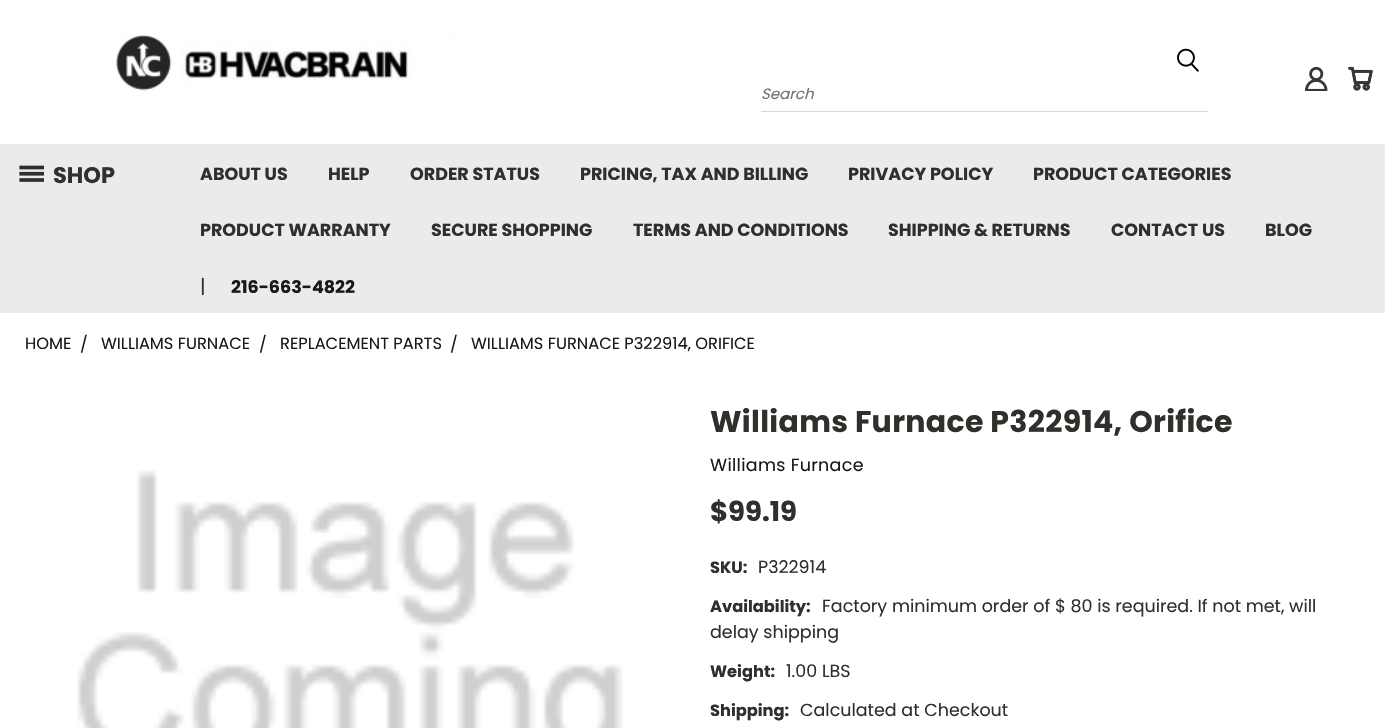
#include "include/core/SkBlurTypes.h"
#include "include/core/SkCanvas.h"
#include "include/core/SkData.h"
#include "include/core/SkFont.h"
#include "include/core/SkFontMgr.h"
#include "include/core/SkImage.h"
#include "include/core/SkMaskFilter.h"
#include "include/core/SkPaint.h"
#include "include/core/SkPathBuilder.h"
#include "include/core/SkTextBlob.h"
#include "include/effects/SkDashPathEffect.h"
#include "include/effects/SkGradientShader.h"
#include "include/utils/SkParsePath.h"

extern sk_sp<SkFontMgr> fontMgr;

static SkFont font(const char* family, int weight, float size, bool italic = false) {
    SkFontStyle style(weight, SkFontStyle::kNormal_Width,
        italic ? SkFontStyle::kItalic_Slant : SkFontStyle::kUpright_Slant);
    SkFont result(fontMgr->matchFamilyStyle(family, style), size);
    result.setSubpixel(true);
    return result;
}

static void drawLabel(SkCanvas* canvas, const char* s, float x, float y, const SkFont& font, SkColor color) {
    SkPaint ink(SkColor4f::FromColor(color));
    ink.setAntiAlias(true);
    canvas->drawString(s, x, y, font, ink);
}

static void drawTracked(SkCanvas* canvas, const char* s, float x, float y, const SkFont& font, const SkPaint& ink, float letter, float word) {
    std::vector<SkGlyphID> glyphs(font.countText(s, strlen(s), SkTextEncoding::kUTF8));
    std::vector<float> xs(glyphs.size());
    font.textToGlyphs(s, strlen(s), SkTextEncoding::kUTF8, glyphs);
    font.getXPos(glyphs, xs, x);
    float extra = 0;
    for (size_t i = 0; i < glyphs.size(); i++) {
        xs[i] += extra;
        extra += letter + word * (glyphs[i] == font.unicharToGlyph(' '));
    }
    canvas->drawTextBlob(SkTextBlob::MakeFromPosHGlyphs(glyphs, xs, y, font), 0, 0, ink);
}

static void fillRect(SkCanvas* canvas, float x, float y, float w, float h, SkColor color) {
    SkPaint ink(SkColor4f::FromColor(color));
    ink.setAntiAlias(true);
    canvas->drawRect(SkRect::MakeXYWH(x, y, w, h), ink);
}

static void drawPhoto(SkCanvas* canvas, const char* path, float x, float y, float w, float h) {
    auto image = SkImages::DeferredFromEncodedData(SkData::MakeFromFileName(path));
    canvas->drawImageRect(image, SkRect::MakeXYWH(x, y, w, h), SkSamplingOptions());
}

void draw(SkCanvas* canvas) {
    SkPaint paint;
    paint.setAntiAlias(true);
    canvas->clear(0xFFFFFFFF);
    drawPhoto(canvas, "assets/img1.png", 116, 35, 342, 69);
    drawPhoto(canvas, "assets/img2.png", 1305, 66, 23, 25);
    drawPhoto(canvas, "assets/img3.png", 1348, 66, 25, 25);
    drawPhoto(canvas, "assets/img4.png", 1177, 48, 22, 24);
    fillRect(canvas, 761, 111, 447, 1, 0xFFD7D7D7);
    SkFont font1 = font("Poppins", 400, 15, true);
    drawLabel(canvas, "Search", 761, 99, font1, 0xFF70706E);
    fillRect(canvas, 0, 144, 1385, 169, 0xFFEBEBEB);
    drawPhoto(canvas, "assets/img5.png", 19, 165, 25, 17);
    SkFont font2 = font("Poppins", 700, 22.5f);
    drawLabel(canvas, "SHOP", 53, 183, font2, 0xFF2F2F2B);
    SkFont font3 = font("Poppins", 700, 17.5f);
    drawLabel(canvas, "ABOUT US", 200, 180, font3, 0xFF2F2F2B);
    drawLabel(canvas, "HELP", 328, 180, font3, 0xFF2F2F2B);
    drawLabel(canvas, "ORDER STATUS", 410, 180, font3, 0xFF2F2F2B);
    drawLabel(canvas, "PRICING, TAX AND BILLING", 580, 180, font3, 0xFF2F2F2B);
    drawLabel(canvas, "PRIVACY POLICY", 848, 180, font3, 0xFF2F2F2B);
    drawLabel(canvas, "PRODUCT CATEGORIES", 1033, 180, font3, 0xFF2F2F2B);
    drawLabel(canvas, "PRODUCT WARRANTY", 200, 236, font3, 0xFF2F2F2B);
    drawLabel(canvas, "SECURE SHOPPING", 431, 236, font3, 0xFF2F2F2B);
    drawLabel(canvas, "TERMS AND CONDITIONS", 633, 236, font3, 0xFF2F2F2B);
    drawLabel(canvas, "SHIPPING & RETURNS", 888, 236, font3, 0xFF2F2F2B);
    drawLabel(canvas, "CONTACT US", 1111, 236, font3, 0xFF2F2F2B);
    drawLabel(canvas, "BLOG", 1265, 236, font3, 0xFF2F2F2B);
    SkFont font4 = font("Poppins", 400, 19);
    drawLabel(canvas, "|", 200, 293, font4, 0xFF2F2F2B);
    drawLabel(canvas, "216-663-4822", 231, 293, font3, 0xFF191919);
    SkFont font5 = font("Poppins", 400, 16.25f);
    drawLabel(canvas, "HOME", 25, 349, font5, 0xFF191919);
    drawLabel(canvas, "/", 80, 350, font5, 0xFF191919);
    drawLabel(canvas, "WILLIAMS FURNACE", 101, 349, font5, 0xFF191919);
    drawLabel(canvas, "/", 259, 350, font5, 0xFF191919);
    drawLabel(canvas, "REPLACEMENT PARTS", 280, 349, font5, 0xFF191919);
    drawLabel(canvas, "/", 450, 350, font5, 0xFF191919);
    drawLabel(canvas, "WILLIAMS FURNACE P322914, ORIFICE", 471, 349, font5, 0xFF191919);
    drawPhoto(canvas, "assets/img6.png", 77, 470, 546, 258);
    SkFont font6 = font("Poppins", 700, 30);
    paint.setColor(0xFF2F2F2B);
    drawTracked(canvas, "Williams Furnace P322914, Orifice", 710, 432, font6, paint, 0.3f, 0);
    SkFont font7 = font("Poppins", 400, 17.5f);
    paint.setColor(0xFF191919);
    drawTracked(canvas, "Williams Furnace", 710, 471, font7, paint, 0.3f, 0);
    SkFont font8 = font("Poppins", 700, 27.5f);
    drawLabel(canvas, "$99.19", 710, 521, font8, 0xFF2F2F2B);
    SkFont font9 = font("Poppins", 700, 16.25f);
    drawLabel(canvas, "SKU:", 710, 573, font9, 0xFF2F2F2B);
    drawLabel(canvas, "P322914", 758, 573, font7, 0xFF2F2F2B);
    drawLabel(canvas, "Availability:", 710, 612, font9, 0xFF2F2F2B);
    drawLabel(canvas, "Factory minimum order of $ 80 is required. If not met, will", 822, 612, font7, 0xFF2F2F2B);
    drawLabel(canvas, "delay shipping", 710, 638, font7, 0xFF2F2F2B);
    drawLabel(canvas, "Weight:", 710, 677, font9, 0xFF2F2F2B);
    drawLabel(canvas, "1.00 LBS", 786, 677, font7, 0xFF2F2F2B);
    drawLabel(canvas, "Shipping:", 710, 716, font9, 0xFF2F2F2B);
    drawLabel(canvas, "Calculated at Checkout", 800, 716, font7, 0xFF2F2F2B);
}
